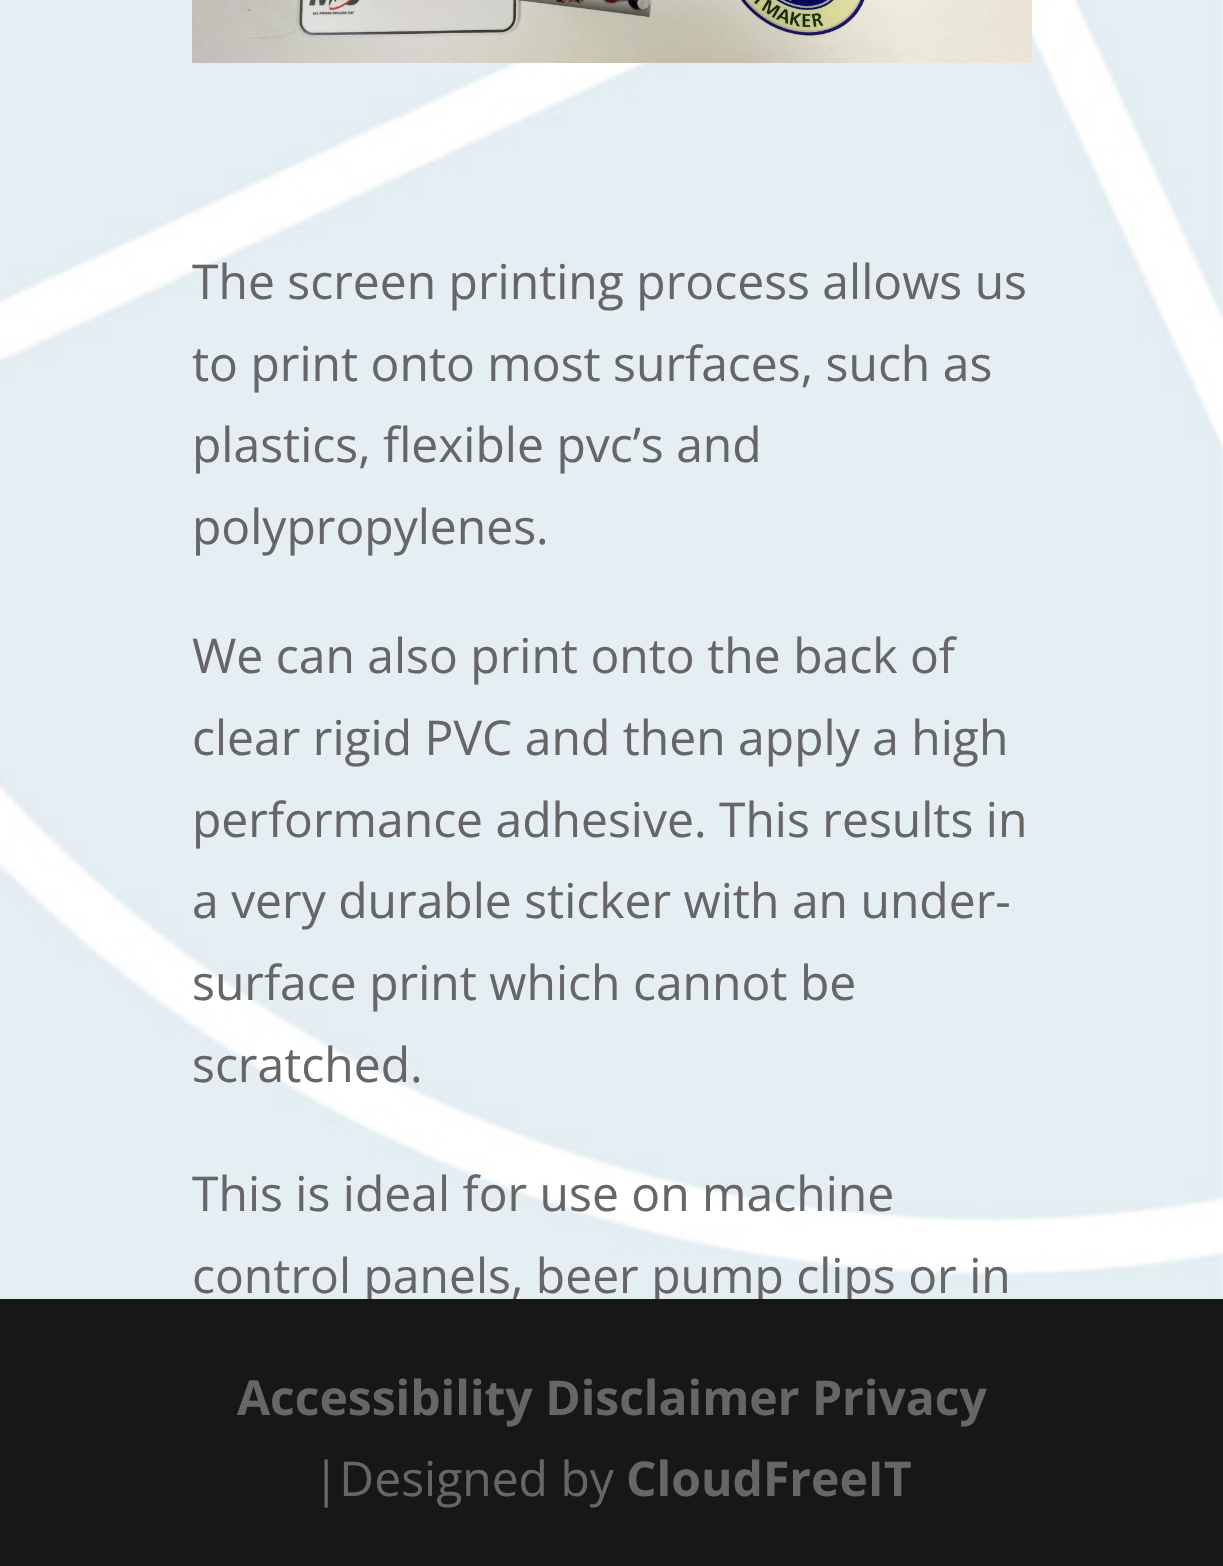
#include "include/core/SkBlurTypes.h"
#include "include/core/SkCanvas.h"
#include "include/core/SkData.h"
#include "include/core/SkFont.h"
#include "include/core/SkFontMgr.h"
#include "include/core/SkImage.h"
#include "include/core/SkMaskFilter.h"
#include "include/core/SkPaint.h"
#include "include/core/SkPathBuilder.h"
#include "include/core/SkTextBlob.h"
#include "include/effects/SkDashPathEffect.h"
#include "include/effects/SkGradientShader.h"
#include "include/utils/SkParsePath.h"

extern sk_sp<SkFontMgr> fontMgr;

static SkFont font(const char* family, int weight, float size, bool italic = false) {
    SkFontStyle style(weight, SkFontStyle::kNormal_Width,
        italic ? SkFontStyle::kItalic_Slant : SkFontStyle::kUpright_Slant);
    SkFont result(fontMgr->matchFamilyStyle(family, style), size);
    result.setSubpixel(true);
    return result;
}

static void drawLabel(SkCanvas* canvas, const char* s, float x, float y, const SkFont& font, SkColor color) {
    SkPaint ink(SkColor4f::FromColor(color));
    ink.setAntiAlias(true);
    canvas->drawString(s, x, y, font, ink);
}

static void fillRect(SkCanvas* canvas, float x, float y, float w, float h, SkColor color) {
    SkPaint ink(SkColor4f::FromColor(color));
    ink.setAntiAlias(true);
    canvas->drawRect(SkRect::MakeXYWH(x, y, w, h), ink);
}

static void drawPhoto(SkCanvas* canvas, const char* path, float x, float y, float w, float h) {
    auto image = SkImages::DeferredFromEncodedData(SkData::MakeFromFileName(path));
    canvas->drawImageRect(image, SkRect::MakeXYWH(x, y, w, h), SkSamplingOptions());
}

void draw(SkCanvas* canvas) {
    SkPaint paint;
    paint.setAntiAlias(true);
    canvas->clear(0xFFFFFFFF);
    drawPhoto(canvas, "assets/img1.png", 0, 0, 1223, 1299);
    drawPhoto(canvas, "assets/img2.png", 192, 0, 840, 63);
    SkFont font1 = font("Open Sans", 400, 48);
    drawLabel(canvas, "The screen printing process allows us", 192, 299, font1, 0xFF666666);
    drawLabel(canvas, "to print onto most surfaces, such as", 192, 381, font1, 0xFF666666);
    drawLabel(canvas, "plastics, flexible pvc’s and", 192, 462, font1, 0xFF666666);
    drawLabel(canvas, "polypropylenes.", 192, 544, font1, 0xFF666666);
    drawLabel(canvas, "We can also print onto the back of", 192, 673, font1, 0xFF666666);
    drawLabel(canvas, "clear rigid PVC and then apply a high", 192, 755, font1, 0xFF666666);
    drawLabel(canvas, "performance adhesive. This results in", 192, 837, font1, 0xFF666666);
    drawLabel(canvas, "a very durable sticker with an under-", 192, 918, font1, 0xFF666666);
    drawLabel(canvas, "surface print which cannot be", 192, 1000, font1, 0xFF666666);
    drawLabel(canvas, "scratched.", 192, 1082, font1, 0xFF666666);
    drawLabel(canvas, "This is ideal for use on machine", 192, 1211, font1, 0xFF666666);
    drawLabel(canvas, "control panels, beer pump clips or in", 192, 1293, font1, 0xFF666666);
    fillRect(canvas, 0, 1299, 1223, 267, 0xFF171717);
    SkFont font2 = font("Open Sans", 700, 48);
    drawLabel(canvas, "Accessibility Disclaimer Privacy", 237, 1415, font2, 0xFF666666);
    drawLabel(canvas, "|Designed by", 313, 1496, font1, 0xFF666666);
    drawLabel(canvas, "CloudFreeIT", 626, 1496, font2, 0xFF666666);
}
